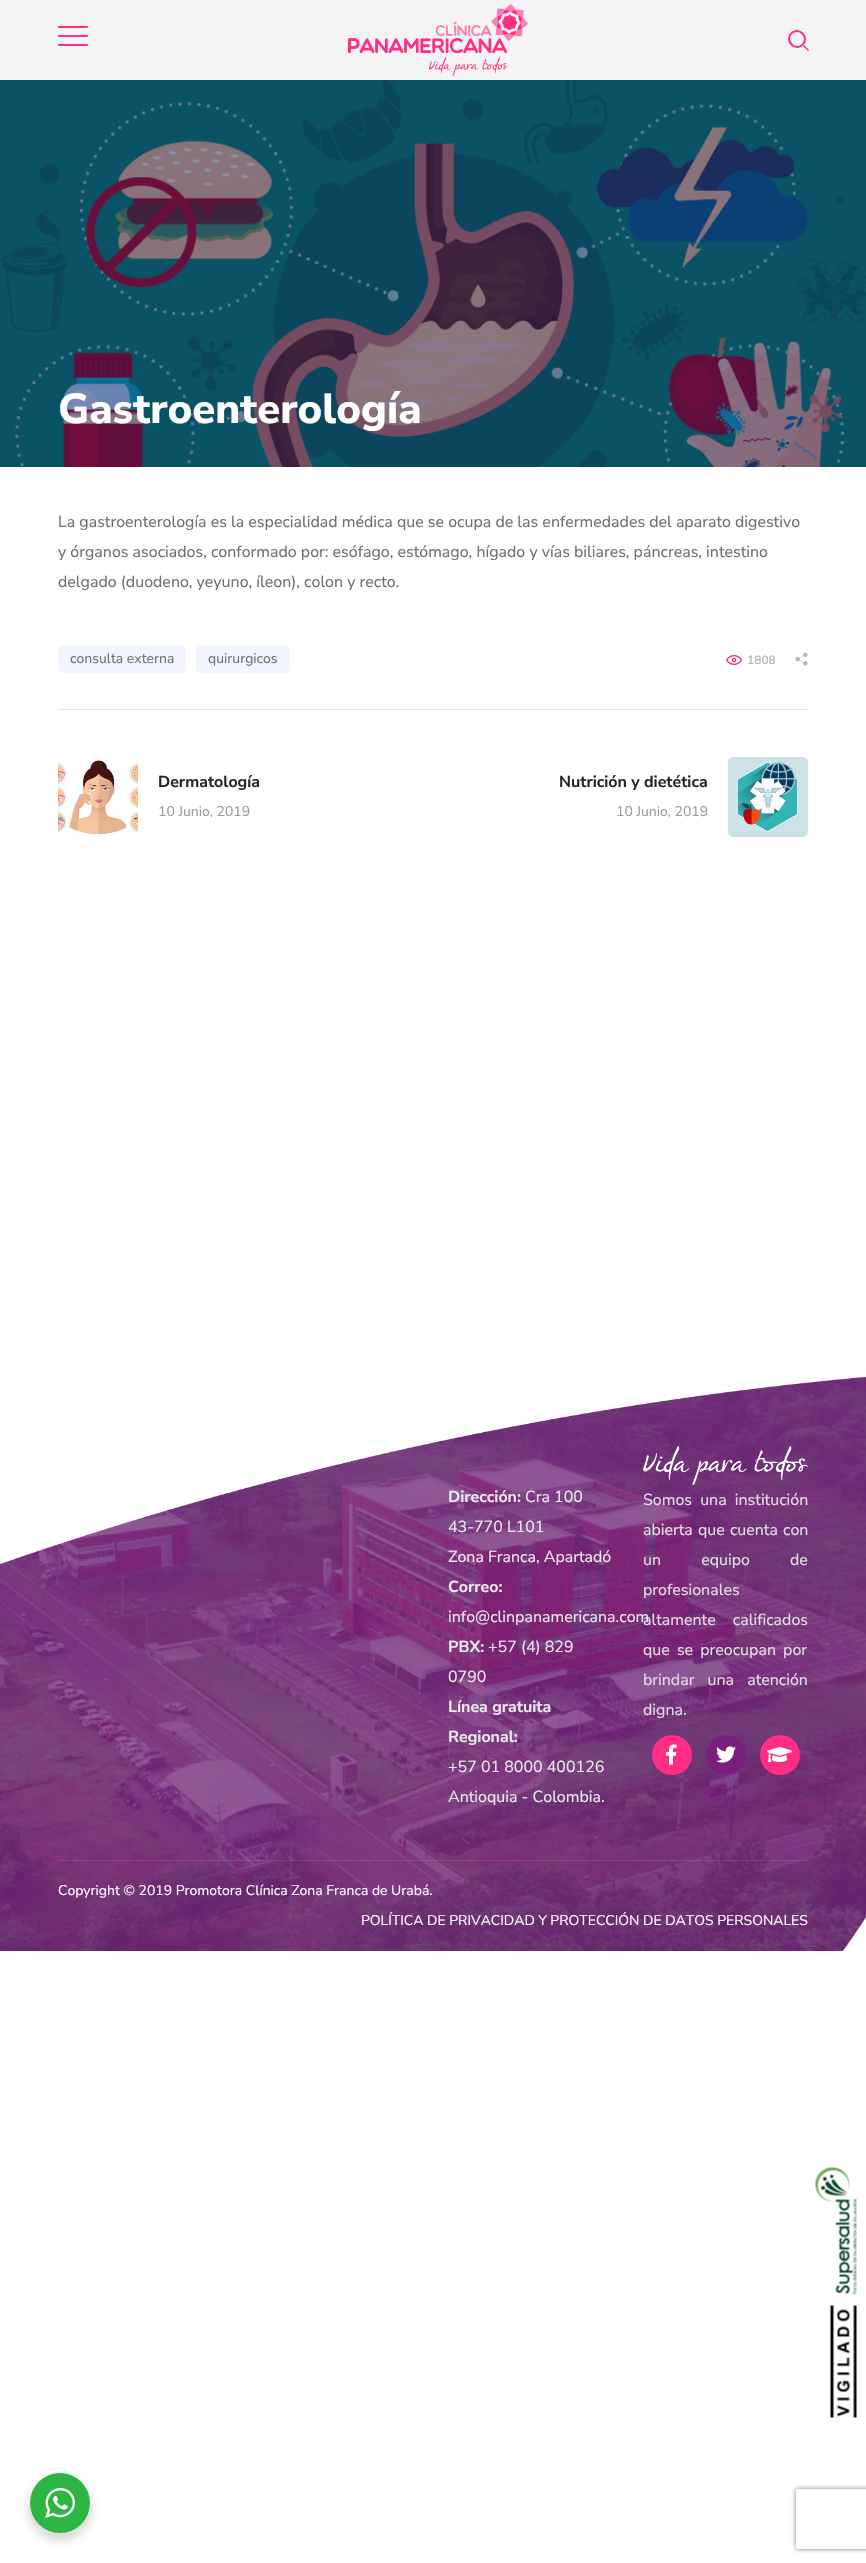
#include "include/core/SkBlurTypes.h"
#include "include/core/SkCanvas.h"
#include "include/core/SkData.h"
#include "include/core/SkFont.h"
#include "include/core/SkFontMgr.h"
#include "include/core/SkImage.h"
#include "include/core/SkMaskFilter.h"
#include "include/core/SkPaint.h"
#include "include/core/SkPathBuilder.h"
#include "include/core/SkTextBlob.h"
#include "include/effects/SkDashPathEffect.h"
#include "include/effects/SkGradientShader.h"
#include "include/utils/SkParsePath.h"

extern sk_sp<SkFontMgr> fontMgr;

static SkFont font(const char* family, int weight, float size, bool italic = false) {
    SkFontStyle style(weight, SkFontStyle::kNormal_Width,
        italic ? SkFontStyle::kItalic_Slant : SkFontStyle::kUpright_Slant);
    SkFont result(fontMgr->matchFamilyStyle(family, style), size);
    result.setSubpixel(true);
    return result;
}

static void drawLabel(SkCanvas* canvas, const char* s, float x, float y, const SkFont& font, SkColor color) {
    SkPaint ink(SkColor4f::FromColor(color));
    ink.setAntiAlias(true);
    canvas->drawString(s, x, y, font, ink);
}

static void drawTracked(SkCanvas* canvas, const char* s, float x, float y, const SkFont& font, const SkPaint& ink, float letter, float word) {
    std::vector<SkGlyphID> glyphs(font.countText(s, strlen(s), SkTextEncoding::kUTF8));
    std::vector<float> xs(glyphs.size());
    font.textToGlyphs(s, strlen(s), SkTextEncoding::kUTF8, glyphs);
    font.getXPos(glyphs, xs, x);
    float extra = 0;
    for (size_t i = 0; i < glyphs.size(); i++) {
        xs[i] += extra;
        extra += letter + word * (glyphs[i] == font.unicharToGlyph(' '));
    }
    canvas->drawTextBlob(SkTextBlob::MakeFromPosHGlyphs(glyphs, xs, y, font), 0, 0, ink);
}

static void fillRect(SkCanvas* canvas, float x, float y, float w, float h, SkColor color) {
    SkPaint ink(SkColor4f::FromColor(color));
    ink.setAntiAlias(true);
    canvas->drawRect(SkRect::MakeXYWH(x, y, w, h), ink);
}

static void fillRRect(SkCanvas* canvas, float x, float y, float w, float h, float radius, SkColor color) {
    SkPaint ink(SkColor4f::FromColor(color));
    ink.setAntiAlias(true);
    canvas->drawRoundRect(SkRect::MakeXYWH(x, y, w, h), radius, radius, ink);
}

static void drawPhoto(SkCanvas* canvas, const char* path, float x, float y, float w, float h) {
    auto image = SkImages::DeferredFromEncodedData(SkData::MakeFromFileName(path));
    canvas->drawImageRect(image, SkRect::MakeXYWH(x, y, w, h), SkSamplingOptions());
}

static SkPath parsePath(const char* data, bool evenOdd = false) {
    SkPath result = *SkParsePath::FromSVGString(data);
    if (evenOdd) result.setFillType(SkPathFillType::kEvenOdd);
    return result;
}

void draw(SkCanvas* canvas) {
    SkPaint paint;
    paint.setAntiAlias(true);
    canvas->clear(0xFFFFFFFF);
    fillRect(canvas, 0, 0, 866, 80, 0xFFF4F4F4);
    fillRRect(canvas, 58, 26, 30, 2, 1, 0xFFFF2D83);
    fillRRect(canvas, 58, 35, 30, 2, 1, 0xFFFF2D83);
    fillRRect(canvas, 58, 44, 30, 2, 1, 0xFFFF2D83);
    drawPhoto(canvas, "assets/img1.png", 348, 4, 180, 72);
    paint.setStroke(true);
    paint.setStrokeWidth(2);
    paint.setColor(0xFFFF2D83);
    canvas->drawPath(parsePath("M802.5 33.5C810 41 799 52 791.5 44.5C784 37 795 26 802.5 33.5Z"), paint);
    paint.setStroke(false);
    canvas->drawPath(parsePath("M803 46L804 45L809 50L808 51Z"), paint);
    drawPhoto(canvas, "assets/img2.png", 0, 80, 866, 387);
    SkFont font1 = font("Nunito Sans", 800, 42);
    drawLabel(canvas, "Gastroenterología", 58, 423, font1, 0xFFFFFFFF);
    SkFont font2 = font("Nunito Sans", 400, 16);
    drawLabel(canvas, "La gastroenterología es la especialidad médica que se ocupa de las enfermedades del aparato digestivo", 58, 527, font2, 0xFF6E6E6E);
    drawLabel(canvas, "y órganos asociados, conformado por: esófago, estómago, hígado y vías biliares, páncreas, intestino", 58, 557, font2, 0xFF6E6E6E);
    drawLabel(canvas, "delgado (duodeno, yeyuno, íleon), colon y recto.", 58, 587, font2, 0xFF6E6E6E);
    fillRect(canvas, 58, 709, 750, 1, 0xFFE6E6E6);
    fillRRect(canvas, 58, 645, 128, 28, 5, 0xFFF3F5FE);
    SkFont font3 = font("Nunito Sans", 400, 14);
    drawLabel(canvas, "consulta externa", 70, 663, font3, 0xFF6E6E6E);
    fillRRect(canvas, 196, 645, 94, 28, 5, 0xFFF3F5FE);
    drawLabel(canvas, "quirurgicos", 208, 663, font3, 0xFF6E6E6E);
    drawPhoto(canvas, "assets/img3.png", 726, 655, 16, 10);
    SkFont font4 = font("Nunito Sans", 600, 12);
    drawLabel(canvas, "1808", 747, 664, font4, 0xFFB6B6B6);
    drawPhoto(canvas, "assets/img4.png", 795, 652, 13, 14);
    drawPhoto(canvas, "assets/img5.png", 58, 760, 80, 75);
    SkFont font5 = font("Nunito Sans", 700, 16);
    drawLabel(canvas, "Dermatología", 158, 787, font5, 0xFF252525);
    drawLabel(canvas, "10 Junio, 2019", 158, 816, font3, 0xFF9A9A9A);
    drawLabel(canvas, "Nutrición y dietética", 559, 787, font5, 0xFF252525);
    drawLabel(canvas, "10 Junio, 2019", 616, 816, font3, 0xFF9A9A9A);
    drawPhoto(canvas, "assets/img6.png", 728, 757, 80, 80);
    drawPhoto(canvas, "assets/img7.png", 0, 1377, 866, 574);
    drawLabel(canvas, "Dirección:", 448, 1502, font5, 0xFFEBEBEB);
    drawLabel(canvas, "Cra 100", 525, 1502, font2, 0xFFEBEBEB);
    drawLabel(canvas, "43-770 L101", 448, 1532, font2, 0xFFEBEBEB);
    drawLabel(canvas, "Zona Franca, Apartadó", 448, 1562, font2, 0xFFEBEBEB);
    drawLabel(canvas, "Correo:", 448, 1592, font5, 0xFFEBEBEB);
    drawLabel(canvas, "info@clinpanamericana.com", 448, 1622, font2, 0xFFEBEBEB);
    drawLabel(canvas, "PBX:", 448, 1652, font5, 0xFFEBEBEB);
    drawLabel(canvas, "+57 (4) 829", 488, 1652, font2, 0xFFEBEBEB);
    drawLabel(canvas, "0790", 448, 1682, font2, 0xFFEBEBEB);
    drawLabel(canvas, "Línea gratuita", 448, 1712, font5, 0xFFEBEBEB);
    drawLabel(canvas, "Regional:", 448, 1742, font5, 0xFFEBEBEB);
    drawLabel(canvas, "+57 01 8000 400126", 448, 1772, font2, 0xFFEBEBEB);
    drawLabel(canvas, "Antioquia - Colombia.", 448, 1802, font2, 0xFFEBEBEB);
    drawPhoto(canvas, "assets/img8.png", 643, 1446, 165, 39);
    paint.setColor(0xFFE0E0E0);
    drawTracked(canvas, "Somos una institución", 643, 1505, font2, paint, 0, 4);
    drawTracked(canvas, "abierta que cuenta con", 643, 1535, font2, paint, 0, 1);
    drawTracked(canvas, "un equipo de", 643, 1565, font2, paint, 0, 36);
    drawLabel(canvas, "profesionales", 643, 1595, font2, 0xFFE0E0E0);
    drawTracked(canvas, "altamente calificados", 643, 1625, font2, paint, 0, 13);
    drawTracked(canvas, "que se preocupan por", 643, 1655, font2, paint, 0, 3);
    drawTracked(canvas, "brindar una atención", 643, 1685, font2, paint, 0, 9);
    drawLabel(canvas, "digna.", 643, 1715, font2, 0xFFE0E0E0);
    paint.setColor(0xFFFF2D83);
    canvas->drawCircle(672, 1755, 20, paint);
    drawPhoto(canvas, "assets/img9.png", 665, 1744, 12, 21);
    paint.setColor(0xFF79207F);
    canvas->drawCircle(726, 1755, 20, paint);
    drawPhoto(canvas, "assets/img10.png", 716, 1746, 20, 17);
    paint.setColor(0xFFFF2D83);
    canvas->drawCircle(780, 1755, 20, paint);
    drawPhoto(canvas, "assets/img11.png", 767, 1747, 25, 15);
    fillRect(canvas, 58, 1860, 750, 1, 0x1AFFFFFF);
    drawLabel(canvas, "Copyright © 2019 Promotora Clínica Zona Franca de Urabá.", 58, 1895, font3, 0xFFFFFFFF);
    drawLabel(canvas, "POLÍTICA DE PRIVACIDAD Y PROTECCIÓN DE DATOS PERSONALES", 361, 1925, font3, 0xFFFFFFFF);
    drawPhoto(canvas, "assets/img12.png", 815, 2167, 42, 251);
    paint.setColor(0x24000000);
    paint.setMaskFilter(SkMaskFilter::MakeBlur(kNormal_SkBlurStyle, 4));
    canvas->drawRoundRect(SkRect::MakeXYWH(28, 2477, 64, 64), 32, 32, paint);
    paint.setMaskFilter(nullptr);
    paint.setColor(0xFF2DB742);
    canvas->drawCircle(60, 2503, 30, paint);
    drawPhoto(canvas, "assets/img13.png", 45, 2488, 30, 30);
    canvas->save();
    canvas->clipPath(parsePath("M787 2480H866V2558H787ZM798 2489H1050C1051 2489 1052 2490 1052 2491V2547C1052 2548 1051 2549 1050 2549H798C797 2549 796 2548 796 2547V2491C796 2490 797 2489 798 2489Z", true), true);
    paint.setColor(0xFF808080);
    paint.setMaskFilter(SkMaskFilter::MakeBlur(kNormal_SkBlurStyle, 2.5f));
    canvas->drawRoundRect(SkRect::MakeXYWH(796, 2489, 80, 60), 2, 2, paint);
    paint.setMaskFilter(nullptr);
    canvas->restore();
}
